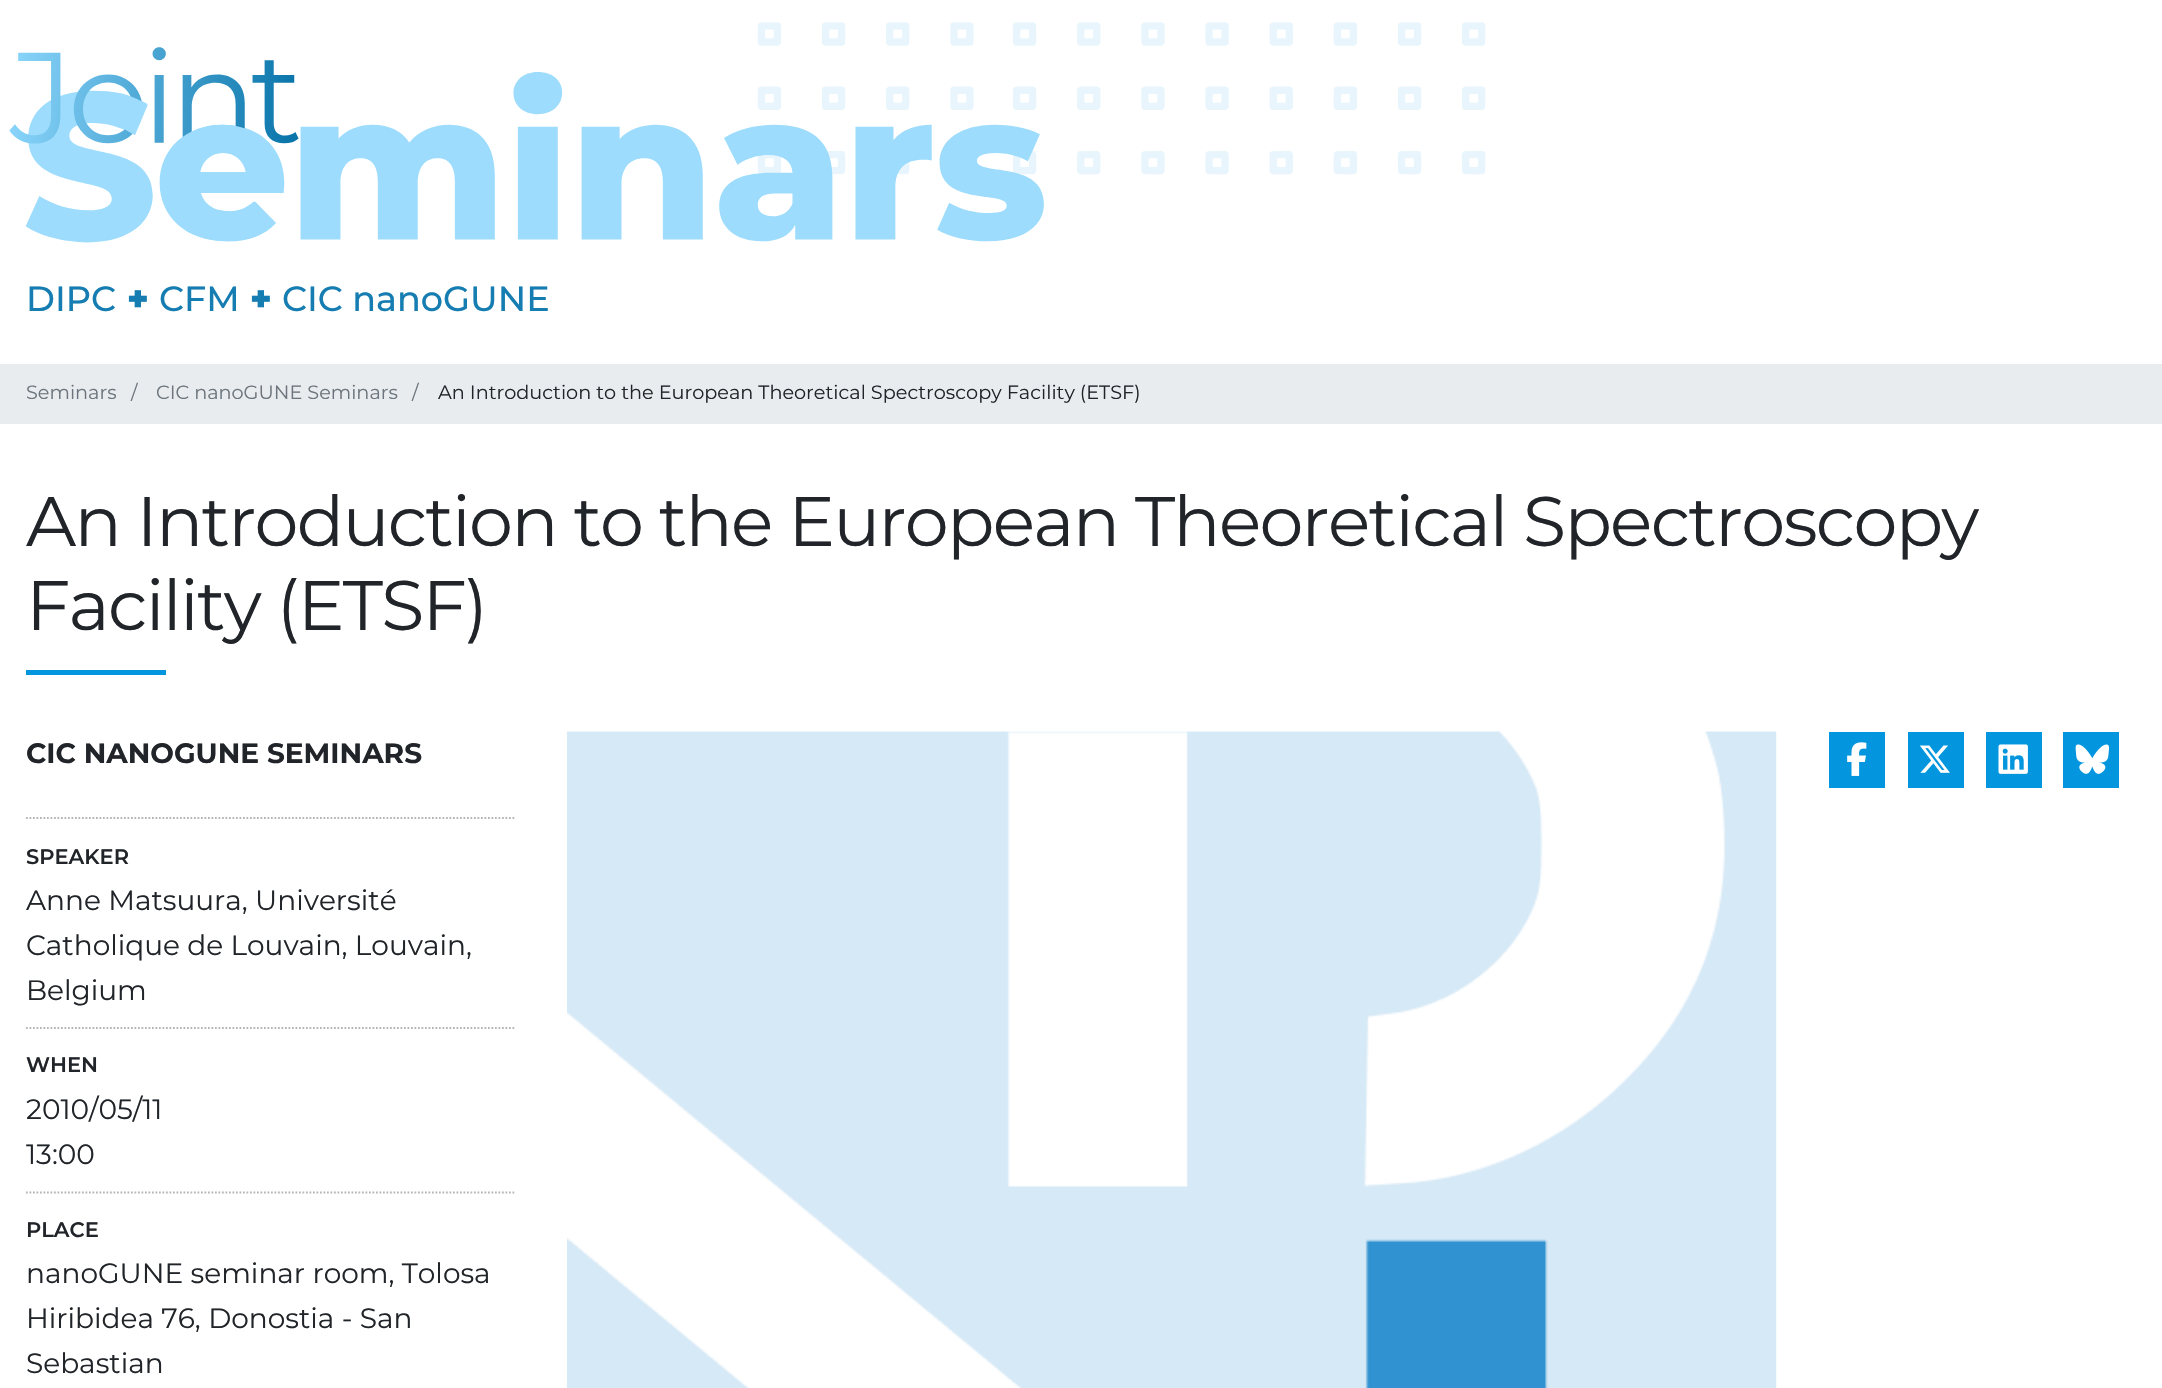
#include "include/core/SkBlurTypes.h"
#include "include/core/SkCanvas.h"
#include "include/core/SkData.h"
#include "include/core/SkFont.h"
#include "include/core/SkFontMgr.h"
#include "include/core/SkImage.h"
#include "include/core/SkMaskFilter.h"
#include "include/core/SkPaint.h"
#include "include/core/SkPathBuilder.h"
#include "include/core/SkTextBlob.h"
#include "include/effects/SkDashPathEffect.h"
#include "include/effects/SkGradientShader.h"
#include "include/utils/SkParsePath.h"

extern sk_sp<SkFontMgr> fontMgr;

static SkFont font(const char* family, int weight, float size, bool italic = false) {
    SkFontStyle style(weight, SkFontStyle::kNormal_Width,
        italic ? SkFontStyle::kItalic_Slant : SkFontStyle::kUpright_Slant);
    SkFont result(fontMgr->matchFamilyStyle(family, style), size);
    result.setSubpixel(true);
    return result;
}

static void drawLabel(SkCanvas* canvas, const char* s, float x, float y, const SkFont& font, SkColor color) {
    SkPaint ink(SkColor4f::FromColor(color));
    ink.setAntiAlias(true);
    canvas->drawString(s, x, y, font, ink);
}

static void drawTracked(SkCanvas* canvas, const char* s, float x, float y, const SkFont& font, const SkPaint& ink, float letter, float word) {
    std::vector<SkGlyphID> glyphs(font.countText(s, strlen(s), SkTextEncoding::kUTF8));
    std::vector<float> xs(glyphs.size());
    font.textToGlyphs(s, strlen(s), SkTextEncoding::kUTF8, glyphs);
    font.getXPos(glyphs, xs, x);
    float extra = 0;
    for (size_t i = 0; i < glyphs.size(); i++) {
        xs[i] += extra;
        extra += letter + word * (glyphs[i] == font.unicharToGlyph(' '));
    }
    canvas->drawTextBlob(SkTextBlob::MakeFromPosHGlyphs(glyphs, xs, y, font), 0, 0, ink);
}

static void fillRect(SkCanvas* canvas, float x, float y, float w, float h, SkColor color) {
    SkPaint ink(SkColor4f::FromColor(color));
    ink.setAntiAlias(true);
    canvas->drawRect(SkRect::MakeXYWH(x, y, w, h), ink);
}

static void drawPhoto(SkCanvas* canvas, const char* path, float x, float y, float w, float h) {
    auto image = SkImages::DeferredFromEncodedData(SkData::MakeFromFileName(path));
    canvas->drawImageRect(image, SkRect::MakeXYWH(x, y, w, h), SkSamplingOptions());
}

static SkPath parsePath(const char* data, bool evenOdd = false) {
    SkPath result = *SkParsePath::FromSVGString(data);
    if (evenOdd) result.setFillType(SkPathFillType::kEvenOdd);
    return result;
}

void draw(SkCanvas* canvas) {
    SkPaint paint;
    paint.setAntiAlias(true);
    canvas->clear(0xFFFFFFFF);
    drawPhoto(canvas, "assets/img1.png", 9, 22, 1477, 221);
    SkFont font1 = font("Montserrat", 500, 35);
    drawLabel(canvas, "DIPC", 26, 311, font1, 0xFF157DB1);
    SkFont font2 = font("Montserrat", 900, 35);
    drawLabel(canvas, "+", 127, 311, font2, 0xFF157DB1);
    drawLabel(canvas, "CFM", 159, 311, font1, 0xFF157DB1);
    drawLabel(canvas, "+", 250, 311, font2, 0xFF157DB1);
    drawLabel(canvas, "CIC nanoGUNE", 282, 311, font1, 0xFF157DB1);
    fillRect(canvas, 0, 364, 2162, 60, 0xFFE9ECEF);
    SkFont font3 = font("Montserrat", 400, 19.25f);
    drawLabel(canvas, "Seminars", 26, 399, font3, 0xFF6C757D);
    drawLabel(canvas, "/", 131, 399, font3, 0xFF6C757D);
    drawLabel(canvas, "CIC nanoGUNE Seminars", 156, 399, font3, 0xFF6C757D);
    drawLabel(canvas, "/", 412, 399, font3, 0xFF6C757D);
    drawLabel(canvas, "An Introduction to the European Theoretical Spectroscopy Facility (ETSF)", 438, 399, font3, 0xFF212529);
    SkFont font4 = font("Montserrat", 400, 70);
    paint.setColor(0xFF212529);
    drawTracked(canvas, "An Introduction to the European Theoretical Spectroscopy", 26, 546, font4, paint, -1.75f, 0);
    drawTracked(canvas, "Facility (ETSF)", 26, 630, font4, paint, -1.75f, 0);
    fillRect(canvas, 26, 670, 140, 5, 0xFF0395DE);
    SkFont font5 = font("Montserrat", 700, 28);
    drawLabel(canvas, "CIC NANOGUNE SEMINARS", 26, 763, font5, 0xFF212529);
    paint.setStroke(true);
    paint.setStrokeWidth(1.8f);
    paint.setColor(0xFFB5B5B5);
    paint.setPathEffect(SkDashPathEffect::Make({{1.75f, 1.75f}}, 0));
    canvas->drawPath(parsePath("M26 818H514.5"), paint);
    paint.setPathEffect(nullptr);
    SkFont font6 = font("Montserrat", 600, 21);
    drawLabel(canvas, "SPEAKER", 26, 864, font6, 0xFF212529);
    SkFont font7 = font("Montserrat", 400, 28);
    drawLabel(canvas, "Anne Matsuura, Université", 26, 910, font7, 0xFF212529);
    drawLabel(canvas, "Catholique de Louvain, Louvain,", 26, 955, font7, 0xFF212529);
    drawLabel(canvas, "Belgium", 26, 1000, font7, 0xFF212529);
    paint.setPathEffect(SkDashPathEffect::Make({{1.75f, 1.75f}}, 0));
    canvas->drawPath(parsePath("M26 1028H514.5"), paint);
    paint.setPathEffect(nullptr);
    drawLabel(canvas, "WHEN", 26, 1072, font6, 0xFF212529);
    drawLabel(canvas, "2010/05/11", 26, 1119, font7, 0xFF212529);
    drawLabel(canvas, "13:00", 26, 1164, font7, 0xFF212529);
    paint.setPathEffect(SkDashPathEffect::Make({{1.75f, 1.75f}}, 0));
    canvas->drawPath(parsePath("M26 1192.5H514.5"), paint);
    paint.setPathEffect(nullptr);
    drawLabel(canvas, "PLACE", 26, 1237, font6, 0xFF212529);
    drawLabel(canvas, "nanoGUNE seminar room, Tolosa", 26, 1283, font7, 0xFF212529);
    drawLabel(canvas, "Hiribidea 76, Donostia - San", 26, 1328, font7, 0xFF212529);
    drawLabel(canvas, "Sebastian", 26, 1373, font7, 0xFF212529);
    drawPhoto(canvas, "assets/img2.png", 567, 731, 1210, 657);
    fillRect(canvas, 1829, 732, 56, 56, 0xFF0395DE);
    drawPhoto(canvas, "assets/img3.png", 1847, 742, 20, 34);
    fillRect(canvas, 1908, 732, 56, 56, 0xFF0395DE);
    drawPhoto(canvas, "assets/img4.png", 1919, 745, 31, 28);
    fillRect(canvas, 1986, 732, 56, 56, 0xFF0395DE);
    drawPhoto(canvas, "assets/img5.png", 1998, 744, 30, 30);
    fillRect(canvas, 2063, 732, 56, 56, 0xFF0395DE);
    drawPhoto(canvas, "assets/img6.png", 2075, 744, 34, 30);
}
